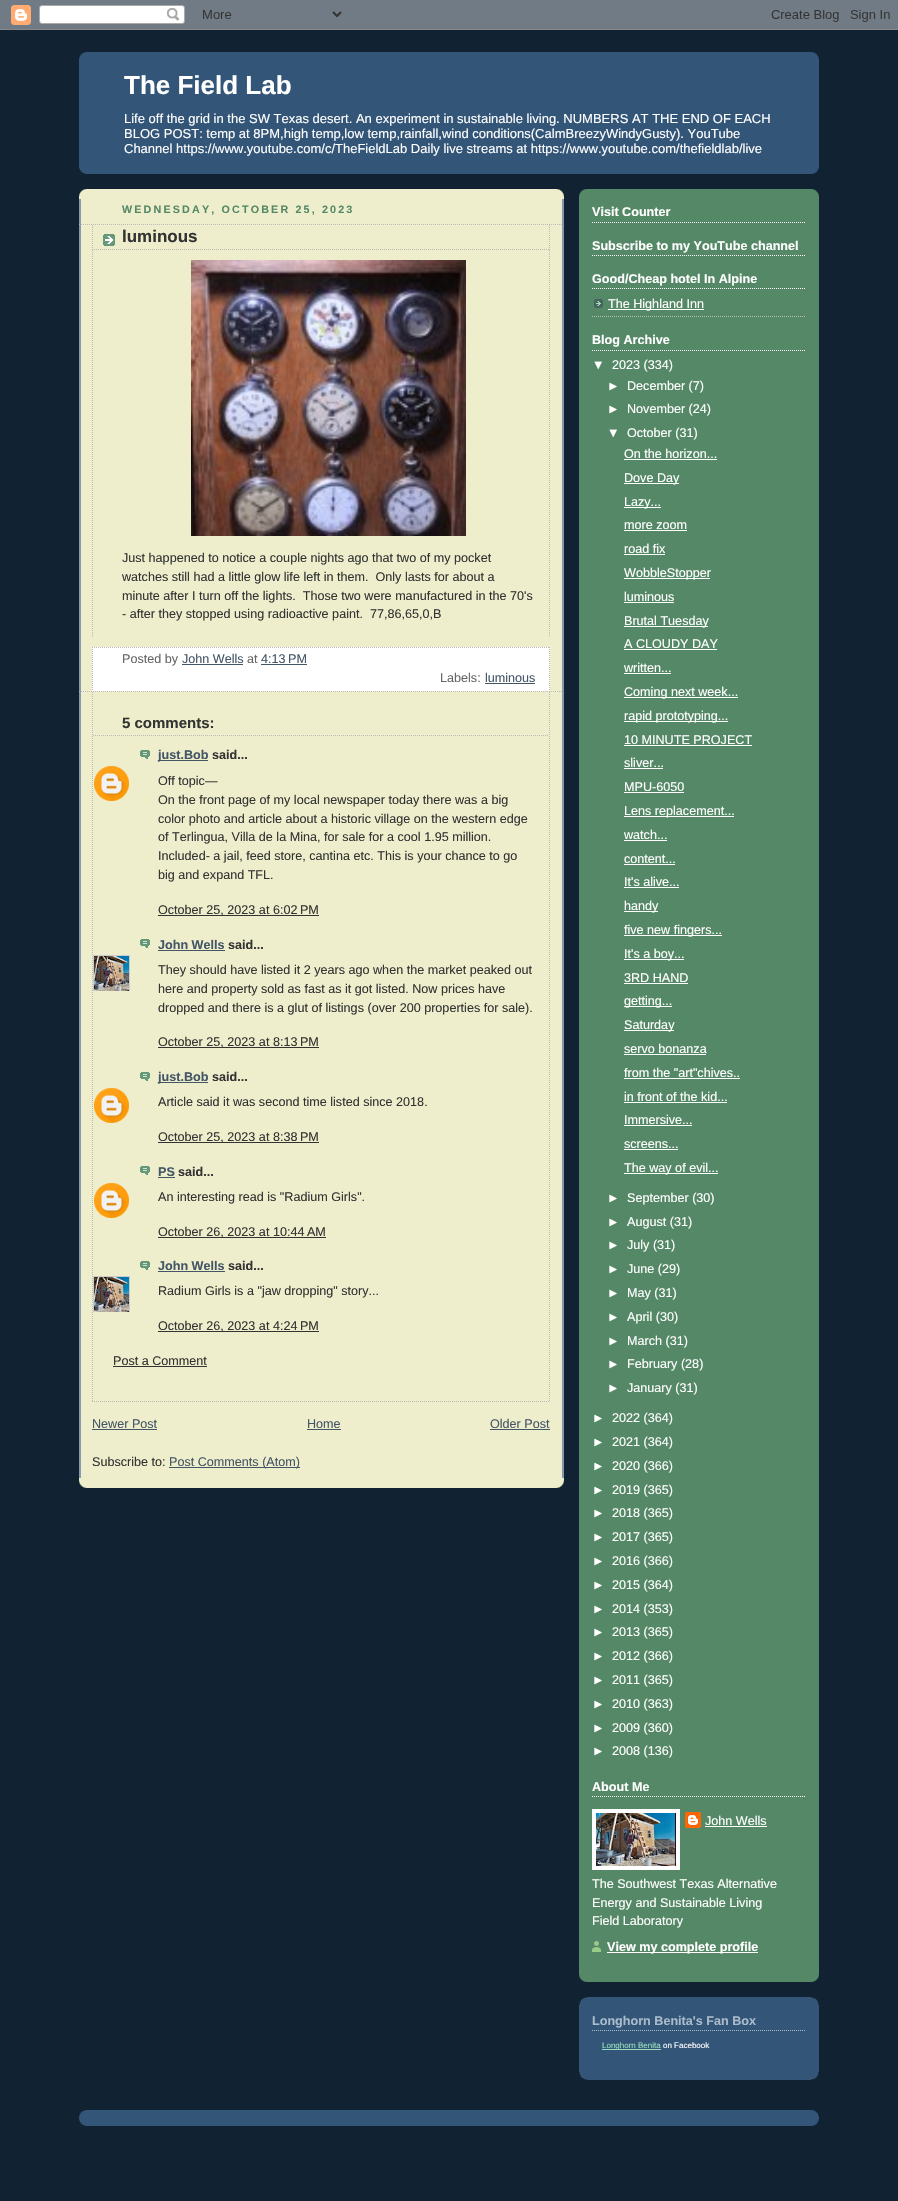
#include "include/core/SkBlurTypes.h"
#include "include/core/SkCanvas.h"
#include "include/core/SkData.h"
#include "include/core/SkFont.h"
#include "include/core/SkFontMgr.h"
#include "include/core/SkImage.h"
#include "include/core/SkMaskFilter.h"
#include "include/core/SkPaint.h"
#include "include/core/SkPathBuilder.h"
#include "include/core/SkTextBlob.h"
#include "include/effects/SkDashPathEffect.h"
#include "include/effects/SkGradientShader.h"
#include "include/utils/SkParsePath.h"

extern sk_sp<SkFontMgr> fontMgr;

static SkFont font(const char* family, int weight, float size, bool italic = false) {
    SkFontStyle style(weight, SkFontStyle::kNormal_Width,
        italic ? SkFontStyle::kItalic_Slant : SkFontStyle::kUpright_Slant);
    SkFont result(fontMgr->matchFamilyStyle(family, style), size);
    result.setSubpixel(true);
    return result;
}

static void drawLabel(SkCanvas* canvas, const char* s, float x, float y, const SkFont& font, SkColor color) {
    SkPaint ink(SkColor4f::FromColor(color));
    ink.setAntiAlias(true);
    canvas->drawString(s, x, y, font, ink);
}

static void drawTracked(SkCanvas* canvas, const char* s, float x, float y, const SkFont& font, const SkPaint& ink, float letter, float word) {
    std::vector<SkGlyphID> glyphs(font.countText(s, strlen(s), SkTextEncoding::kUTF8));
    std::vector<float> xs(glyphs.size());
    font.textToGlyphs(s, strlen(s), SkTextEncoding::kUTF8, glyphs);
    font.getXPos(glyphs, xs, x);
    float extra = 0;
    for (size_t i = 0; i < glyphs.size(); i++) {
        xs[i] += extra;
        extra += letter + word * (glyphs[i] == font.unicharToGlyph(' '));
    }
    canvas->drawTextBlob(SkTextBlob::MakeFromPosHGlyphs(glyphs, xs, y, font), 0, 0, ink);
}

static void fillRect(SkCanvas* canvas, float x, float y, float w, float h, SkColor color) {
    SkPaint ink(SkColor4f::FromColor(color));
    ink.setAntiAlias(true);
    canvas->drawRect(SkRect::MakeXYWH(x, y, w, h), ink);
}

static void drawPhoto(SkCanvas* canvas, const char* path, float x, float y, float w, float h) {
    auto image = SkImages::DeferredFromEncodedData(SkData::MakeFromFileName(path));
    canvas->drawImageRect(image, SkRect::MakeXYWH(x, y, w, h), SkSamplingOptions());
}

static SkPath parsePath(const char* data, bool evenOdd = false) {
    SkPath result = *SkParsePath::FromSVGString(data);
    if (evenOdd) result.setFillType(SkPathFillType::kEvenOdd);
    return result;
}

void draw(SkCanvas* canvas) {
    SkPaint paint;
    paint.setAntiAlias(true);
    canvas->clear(0xFF112233);
    drawPhoto(canvas, "assets/img1.png", 0, 0, 898, 30);
    fillRect(canvas, 79, 52, 740, 122, 0xFF335577);
    drawPhoto(canvas, "assets/img2.png", 79, 52, 740, 7);
    drawPhoto(canvas, "assets/img3.png", 79, 167, 740, 7);
    SkFont font1 = font("Liberation Sans", 700, 26);
    drawLabel(canvas, "The Field Lab", 124, 94, font1, 0xFFFFFFFF);
    SkFont font2 = font("Liberation Sans", 400, 13);
    drawLabel(canvas, "Life off the grid in the SW Texas desert. An experiment in sustainable living. NUMBERS AT THE END OF EACH", 124, 123, font2, 0xFFFFFFFF);
    drawLabel(canvas, "BLOG POST: temp at 8PM,high temp,low temp,rainfall,wind conditions(CalmBreezyWindyGusty). YouTube", 124, 138, font2, 0xFFFFFFFF);
    drawLabel(canvas, "Channel https://www.youtube.com/c/TheFieldLab Daily live streams at https://www.youtube.com/thefieldlab/live", 124, 153, font2, 0xFFFFFFFF);
    fillRect(canvas, 79, 189, 485, 1299, 0xFFEEEECC);
    drawPhoto(canvas, "assets/img4.png", 79, 1480, 485, 8);
    drawPhoto(canvas, "assets/img5.png", 79, 189, 485, 8);
    drawPhoto(canvas, "assets/img6.png", 79, 199, 485, 1279);
    SkFont font3 = font("Liberation Sans", 700, 10.75f);
    paint.setColor(0xFF558866);
    drawTracked(canvas, "WEDNESDAY, OCTOBER 25, 2023", 122, 213, font3, paint, 2.15f, 0);
    paint.setStroke(true);
    paint.setStrokeWidth(1);
    paint.setColor(0xFFBBBBBB);
    paint.setPathEffect(SkDashPathEffect::Make({{1, 1}}, 0));
    canvas->drawPath(parsePath("M79 224.5H563"), paint);
    paint.setPathEffect(nullptr);
    paint.setPathEffect(SkDashPathEffect::Make({{1, 1}}, 0));
    canvas->drawPath(parsePath("M79 691.5H563"), paint);
    paint.setPathEffect(nullptr);
    drawPhoto(canvas, "assets/img7.png", 103, 234, 12, 12);
    paint.setPathEffect(SkDashPathEffect::Make({{1, 1}}, 0));
    canvas->drawPath(parsePath("M549.5 225V250"), paint);
    paint.setPathEffect(nullptr);
    paint.setPathEffect(SkDashPathEffect::Make({{1, 1}}, 0));
    canvas->drawPath(parsePath("M92 249.5H550"), paint);
    paint.setPathEffect(nullptr);
    paint.setPathEffect(SkDashPathEffect::Make({{1, 1}}, 0));
    canvas->drawPath(parsePath("M92.5 225V250"), paint);
    paint.setPathEffect(nullptr);
    SkFont font4 = font("Liberation Sans", 700, 17);
    drawLabel(canvas, "luminous", 122, 242, font4, 0xFF333333);
    paint.setPathEffect(SkDashPathEffect::Make({{1, 1}}, 0));
    canvas->drawPath(parsePath("M549.5 250V638"), paint);
    paint.setPathEffect(nullptr);
    paint.setPathEffect(SkDashPathEffect::Make({{1, 1}}, 0));
    canvas->drawPath(parsePath("M92.5 250V638"), paint);
    paint.setPathEffect(nullptr);
    drawPhoto(canvas, "assets/img8.png", 191, 260, 275, 276);
    SkFont font5 = font("Liberation Sans", 400, 12.6f);
    drawLabel(canvas, "Just happened to notice a couple nights ago that two of my pocket", 122, 562, font5, 0xFF333333);
    drawLabel(canvas, "watches still had a little glow life left in them.  Only lasts for about a", 122, 581, font5, 0xFF333333);
    drawLabel(canvas, "minute after I turn off the lights.  Those two were manufactured in the 70's", 122, 600, font5, 0xFF333333);
    drawLabel(canvas, "- after they stopped using radioactive paint.  77,86,65,0,B", 122, 618, font5, 0xFF333333);
    fillRect(canvas, 92, 647, 458, 44, 0xFFFFFFFF);
    paint.setPathEffect(SkDashPathEffect::Make({{1, 1}}, 0));
    canvas->drawPath(parsePath("M92 647.5H550"), paint);
    paint.setPathEffect(nullptr);
    paint.setPathEffect(SkDashPathEffect::Make({{1, 1}}, 0));
    canvas->drawPath(parsePath("M549.5 647V691"), paint);
    paint.setPathEffect(nullptr);
    paint.setPathEffect(SkDashPathEffect::Make({{1, 1}}, 0));
    canvas->drawPath(parsePath("M92.5 647V691"), paint);
    paint.setPathEffect(nullptr);
    drawLabel(canvas, "Posted by", 122, 663, font5, 0xFF666666);
    drawLabel(canvas, "John Wells", 182, 663, font5, 0xFF445566);
    fillRect(canvas, 182, 664, 61, 1, 0xFF445566);
    drawLabel(canvas, "at", 247, 663, font5, 0xFF666666);
    drawLabel(canvas, "4:13 PM", 261, 663, font5, 0xFF445566);
    fillRect(canvas, 261, 664, 46, 1, 0xFF445566);
    drawLabel(canvas, "Labels:", 440, 682, font5, 0xFF666666);
    drawLabel(canvas, "luminous", 485, 682, font5, 0xFF445566);
    fillRect(canvas, 485, 683, 50, 1, 0xFF445566);
    paint.setPathEffect(SkDashPathEffect::Make({{1, 1}}, 0));
    canvas->drawPath(parsePath("M549.5 692V1402"), paint);
    paint.setPathEffect(nullptr);
    paint.setPathEffect(SkDashPathEffect::Make({{1, 1}}, 0));
    canvas->drawPath(parsePath("M92 1401.5H550"), paint);
    paint.setPathEffect(nullptr);
    paint.setPathEffect(SkDashPathEffect::Make({{1, 1}}, 0));
    canvas->drawPath(parsePath("M92.5 692V1402"), paint);
    paint.setPathEffect(nullptr);
    paint.setPathEffect(SkDashPathEffect::Make({{1, 1}}, 0));
    canvas->drawPath(parsePath("M93 735.5H549"), paint);
    paint.setPathEffect(nullptr);
    SkFont font6 = font("Liberation Sans", 700, 15);
    drawLabel(canvas, "5 comments:", 122, 728, font6, 0xFF333333);
    drawPhoto(canvas, "assets/img9.png", 140, 750, 10, 9);
    fillRect(canvas, 158, 760, 50, 1, 0xFF445566);
    SkFont font7 = font("Liberation Sans", 700, 12.6f);
    drawLabel(canvas, "just.Bob", 158, 759, font7, 0xFF445566);
    drawLabel(canvas, "said...", 212, 759, font7, 0xFF333333);
    drawPhoto(canvas, "assets/img10.png", 94, 766, 35, 35);
    drawLabel(canvas, "Off topic—", 158, 785, font5, 0xFF333333);
    drawLabel(canvas, "On the front page of my local newspaper today there was a big", 158, 804, font5, 0xFF333333);
    drawLabel(canvas, "color photo and article about a historic village on the western edge", 158, 823, font5, 0xFF333333);
    drawLabel(canvas, "of Terlingua, Villa de la Mina, for sale for a cool 1.95 million.", 158, 841, font5, 0xFF333333);
    drawLabel(canvas, "Included- a jail, feed store, cantina etc. This is your chance to go", 158, 860, font5, 0xFF333333);
    drawLabel(canvas, "big and expand TFL.", 158, 879, font5, 0xFF333333);
    fillRect(canvas, 158, 915, 161, 1, 0xFF333333);
    drawLabel(canvas, "October 25, 2023 at 6:02 PM", 158, 914, font5, 0xFF333333);
    drawPhoto(canvas, "assets/img9.png", 140, 939, 10, 9);
    drawLabel(canvas, "John Wells", 158, 949, font7, 0xFF445566);
    fillRect(canvas, 158, 950, 67, 1, 0xFF445566);
    drawLabel(canvas, "said...", 228, 949, font7, 0xFF333333);
    canvas->save();
    canvas->clipRect(SkRect::MakeXYWH(93, 955, 37, 36));
    paint.setColor(0xFFCCCCCC);
    canvas->drawRect(SkRect::MakeXYWH(93.5f, 955.5f, 36, 36), paint);
    canvas->restore();
    drawPhoto(canvas, "assets/img11.png", 94, 956, 35, 35);
    drawLabel(canvas, "They should have listed it 2 years ago when the market peaked out", 158, 974, font5, 0xFF333333);
    drawLabel(canvas, "here and property sold as fast as it got listed. Now prices have", 158, 993, font5, 0xFF333333);
    drawLabel(canvas, "dropped and there is a glut of listings (over 200 properties for sale).", 158, 1012, font5, 0xFF333333);
    fillRect(canvas, 158, 1047, 161, 1, 0xFF333333);
    drawLabel(canvas, "October 25, 2023 at 8:13 PM", 158, 1046, font5, 0xFF333333);
    drawPhoto(canvas, "assets/img9.png", 140, 1072, 10, 9);
    fillRect(canvas, 158, 1082, 50, 1, 0xFF445566);
    drawLabel(canvas, "just.Bob", 158, 1081, font7, 0xFF445566);
    drawLabel(canvas, "said...", 212, 1081, font7, 0xFF333333);
    drawPhoto(canvas, "assets/img10.png", 94, 1088, 35, 35);
    drawLabel(canvas, "Article said it was second time listed since 2018.", 158, 1106, font5, 0xFF333333);
    fillRect(canvas, 158, 1142, 161, 1, 0xFF333333);
    drawLabel(canvas, "October 25, 2023 at 8:38 PM", 158, 1141, font5, 0xFF333333);
    drawPhoto(canvas, "assets/img9.png", 140, 1166, 10, 9);
    drawLabel(canvas, "PS", 158, 1176, font7, 0xFF445566);
    fillRect(canvas, 158, 1177, 17, 1, 0xFF445566);
    drawLabel(canvas, "said...", 178, 1176, font7, 0xFF333333);
    drawPhoto(canvas, "assets/img10.png", 94, 1183, 35, 35);
    drawLabel(canvas, "An interesting read is \"Radium Girls\".", 158, 1201, font5, 0xFF333333);
    fillRect(canvas, 158, 1237, 168, 1, 0xFF333333);
    drawLabel(canvas, "October 26, 2023 at 10:44 AM", 158, 1236, font5, 0xFF333333);
    drawPhoto(canvas, "assets/img9.png", 140, 1261, 10, 9);
    drawLabel(canvas, "John Wells", 158, 1270, font7, 0xFF445566);
    fillRect(canvas, 158, 1271, 67, 1, 0xFF445566);
    drawLabel(canvas, "said...", 228, 1270, font7, 0xFF333333);
    canvas->save();
    canvas->clipRect(SkRect::MakeXYWH(93, 1276, 37, 36));
    canvas->drawRect(SkRect::MakeXYWH(93.5f, 1276.5f, 36, 36), paint);
    canvas->restore();
    drawPhoto(canvas, "assets/img12.png", 94, 1277, 35, 35);
    drawLabel(canvas, "Radium Girls is a \"jaw dropping\" story...", 158, 1295, font5, 0xFF333333);
    fillRect(canvas, 158, 1331, 161, 1, 0xFF333333);
    drawLabel(canvas, "October 26, 2023 at 4:24 PM", 158, 1330, font5, 0xFF333333);
    drawLabel(canvas, "Post a Comment", 113, 1365, font5, 0xFF333333);
    fillRect(canvas, 113, 1366, 94, 1, 0xFF333333);
    drawLabel(canvas, "Newer Post", 92, 1428, font5, 0xFF445566);
    fillRect(canvas, 92, 1429, 65, 1, 0xFF445566);
    drawLabel(canvas, "Home", 307, 1428, font5, 0xFF445566);
    fillRect(canvas, 307, 1429, 34, 1, 0xFF445566);
    drawLabel(canvas, "Older Post", 490, 1428, font5, 0xFF445566);
    fillRect(canvas, 490, 1429, 60, 1, 0xFF445566);
    drawLabel(canvas, "Subscribe to:", 92, 1466, font5, 0xFF333333);
    fillRect(canvas, 169, 1467, 131, 1, 0xFF445566);
    drawLabel(canvas, "Post Comments (Atom)", 169, 1466, font5, 0xFF445566);
    fillRect(canvas, 579, 189, 240, 1793, 0xFF558866);
    drawPhoto(canvas, "assets/img13.png", 579, 1974, 240, 8);
    drawPhoto(canvas, "assets/img14.png", 579, 189, 240, 8);
    paint.setColor(0xFFFFFFFF);
    paint.setPathEffect(SkDashPathEffect::Make({{1, 1}}, 0));
    canvas->drawPath(parsePath("M592 222.5H806"), paint);
    paint.setPathEffect(nullptr);
    drawLabel(canvas, "Visit Counter", 592, 216, font7, 0xFFFFFFFF);
    paint.setPathEffect(SkDashPathEffect::Make({{1, 1}}, 0));
    canvas->drawPath(parsePath("M592 255.5H806"), paint);
    paint.setPathEffect(nullptr);
    drawLabel(canvas, "Subscribe to my YouTube channel", 592, 250, font7, 0xFFFFFFFF);
    paint.setPathEffect(SkDashPathEffect::Make({{1, 1}}, 0));
    canvas->drawPath(parsePath("M592 288.5H806"), paint);
    paint.setPathEffect(nullptr);
    drawLabel(canvas, "Good/Cheap hotel In Alpine", 592, 283, font7, 0xFFFFFFFF);
    drawPhoto(canvas, "assets/img15.png", 594, 299, 9, 9);
    paint.setColor(0xFFBBBBBB);
    paint.setPathEffect(SkDashPathEffect::Make({{1, 1}}, 0));
    canvas->drawPath(parsePath("M592 316.5H806"), paint);
    paint.setPathEffect(nullptr);
    fillRect(canvas, 608, 309, 96, 1, 0xFFFFFFFF);
    drawLabel(canvas, "The Highland Inn", 608, 308, font5, 0xFFFFFFFF);
    paint.setColor(0xFFFFFFFF);
    paint.setPathEffect(SkDashPathEffect::Make({{1, 1}}, 0));
    canvas->drawPath(parsePath("M592 350.5H806"), paint);
    paint.setPathEffect(nullptr);
    drawLabel(canvas, "Blog Archive", 592, 344, font7, 0xFFFFFFFF);
    drawLabel(canvas, "▼", 592, 369, font5, 0xFFFFFFFF);
    drawLabel(canvas, "2023 (334)", 612, 369, font5, 0xFFFFFFFF);
    drawLabel(canvas, "►", 607, 390, font5, 0xFFFFFFFF);
    drawLabel(canvas, "December (7)", 627, 390, font5, 0xFFFFFFFF);
    drawLabel(canvas, "►", 607, 413, font5, 0xFFFFFFFF);
    drawLabel(canvas, "November (24)", 627, 413, font5, 0xFFFFFFFF);
    drawLabel(canvas, "▼", 607, 437, font5, 0xFFFFFFFF);
    drawLabel(canvas, "October (31)", 627, 437, font5, 0xFFFFFFFF);
    drawLabel(canvas, "On the horizon...", 624, 458, font5, 0xFFFFFFFF);
    fillRect(canvas, 624, 459, 93, 1, 0xFFFFFFFF);
    fillRect(canvas, 624, 483, 55, 1, 0xFFFFFFFF);
    drawLabel(canvas, "Dove Day", 624, 482, font5, 0xFFFFFFFF);
    fillRect(canvas, 624, 507, 37, 1, 0xFFFFFFFF);
    drawLabel(canvas, "Lazy...", 624, 506, font5, 0xFFFFFFFF);
    drawLabel(canvas, "more zoom", 624, 529, font5, 0xFFFFFFFF);
    fillRect(canvas, 624, 530, 63, 1, 0xFFFFFFFF);
    drawLabel(canvas, "road fix", 624, 553, font5, 0xFFFFFFFF);
    fillRect(canvas, 624, 554, 41, 1, 0xFFFFFFFF);
    fillRect(canvas, 624, 578, 86, 1, 0xFFFFFFFF);
    drawLabel(canvas, "WobbleStopper", 624, 577, font5, 0xFFFFFFFF);
    drawLabel(canvas, "luminous", 624, 601, font5, 0xFFFFFFFF);
    fillRect(canvas, 624, 602, 50, 1, 0xFFFFFFFF);
    fillRect(canvas, 624, 626, 84, 1, 0xFFFFFFFF);
    drawLabel(canvas, "Brutal Tuesday", 624, 625, font5, 0xFFFFFFFF);
    drawLabel(canvas, "A CLOUDY DAY", 624, 648, font5, 0xFFFFFFFF);
    fillRect(canvas, 624, 649, 93, 1, 0xFFFFFFFF);
    drawLabel(canvas, "written...", 624, 672, font5, 0xFFFFFFFF);
    fillRect(canvas, 624, 673, 47, 1, 0xFFFFFFFF);
    fillRect(canvas, 624, 697, 114, 1, 0xFFFFFFFF);
    drawLabel(canvas, "Coming next week...", 624, 696, font5, 0xFFFFFFFF);
    fillRect(canvas, 624, 721, 104, 1, 0xFFFFFFFF);
    drawLabel(canvas, "rapid prototyping...", 624, 720, font5, 0xFFFFFFFF);
    drawLabel(canvas, "10 MINUTE PROJECT", 624, 744, font5, 0xFFFFFFFF);
    fillRect(canvas, 624, 745, 128, 1, 0xFFFFFFFF);
    drawLabel(canvas, "sliver...", 624, 767, font5, 0xFFFFFFFF);
    fillRect(canvas, 624, 768, 39, 1, 0xFFFFFFFF);
    drawLabel(canvas, "MPU-6050", 624, 791, font5, 0xFFFFFFFF);
    fillRect(canvas, 624, 792, 60, 1, 0xFFFFFFFF);
    fillRect(canvas, 624, 816, 110, 1, 0xFFFFFFFF);
    drawLabel(canvas, "Lens replacement...", 624, 815, font5, 0xFFFFFFFF);
    drawLabel(canvas, "watch...", 624, 839, font5, 0xFFFFFFFF);
    fillRect(canvas, 624, 840, 43, 1, 0xFFFFFFFF);
    drawLabel(canvas, "content...", 624, 863, font5, 0xFFFFFFFF);
    fillRect(canvas, 624, 864, 51, 1, 0xFFFFFFFF);
    drawLabel(canvas, "It's alive...", 624, 886, font5, 0xFFFFFFFF);
    fillRect(canvas, 624, 887, 55, 1, 0xFFFFFFFF);
    fillRect(canvas, 624, 911, 34, 1, 0xFFFFFFFF);
    drawLabel(canvas, "handy", 624, 910, font5, 0xFFFFFFFF);
    fillRect(canvas, 624, 935, 98, 1, 0xFFFFFFFF);
    drawLabel(canvas, "five new fingers...", 624, 934, font5, 0xFFFFFFFF);
    fillRect(canvas, 624, 959, 60, 1, 0xFFFFFFFF);
    drawLabel(canvas, "It's a boy...", 624, 958, font5, 0xFFFFFFFF);
    drawLabel(canvas, "3RD HAND", 624, 982, font5, 0xFFFFFFFF);
    fillRect(canvas, 624, 983, 64, 1, 0xFFFFFFFF);
    fillRect(canvas, 624, 1006, 48, 1, 0xFFFFFFFF);
    drawLabel(canvas, "getting...", 624, 1005, font5, 0xFFFFFFFF);
    fillRect(canvas, 624, 1030, 50, 1, 0xFFFFFFFF);
    drawLabel(canvas, "Saturday", 624, 1029, font5, 0xFFFFFFFF);
    drawLabel(canvas, "servo bonanza", 624, 1053, font5, 0xFFFFFFFF);
    fillRect(canvas, 624, 1054, 82, 1, 0xFFFFFFFF);
    drawLabel(canvas, "from the \"art\"chives..", 624, 1077, font5, 0xFFFFFFFF);
    fillRect(canvas, 624, 1078, 116, 1, 0xFFFFFFFF);
    drawLabel(canvas, "in front of the kid...", 624, 1101, font5, 0xFFFFFFFF);
    fillRect(canvas, 624, 1102, 103, 1, 0xFFFFFFFF);
    drawLabel(canvas, "Immersive...", 624, 1124, font5, 0xFFFFFFFF);
    fillRect(canvas, 624, 1125, 68, 1, 0xFFFFFFFF);
    drawLabel(canvas, "screens...", 624, 1148, font5, 0xFFFFFFFF);
    fillRect(canvas, 624, 1149, 54, 1, 0xFFFFFFFF);
    fillRect(canvas, 624, 1173, 94, 1, 0xFFFFFFFF);
    drawLabel(canvas, "The way of evil...", 624, 1172, font5, 0xFFFFFFFF);
    drawLabel(canvas, "►", 607, 1202, font5, 0xFFFFFFFF);
    drawLabel(canvas, "September (30)", 627, 1202, font5, 0xFFFFFFFF);
    drawLabel(canvas, "►", 607, 1226, font5, 0xFFFFFFFF);
    drawLabel(canvas, "August (31)", 627, 1226, font5, 0xFFFFFFFF);
    drawLabel(canvas, "►", 607, 1249, font5, 0xFFFFFFFF);
    drawLabel(canvas, "July (31)", 627, 1249, font5, 0xFFFFFFFF);
    drawLabel(canvas, "►", 607, 1273, font5, 0xFFFFFFFF);
    drawLabel(canvas, "June (29)", 627, 1273, font5, 0xFFFFFFFF);
    drawLabel(canvas, "►", 607, 1297, font5, 0xFFFFFFFF);
    drawLabel(canvas, "May (31)", 627, 1297, font5, 0xFFFFFFFF);
    drawLabel(canvas, "►", 607, 1321, font5, 0xFFFFFFFF);
    drawLabel(canvas, "April (30)", 627, 1321, font5, 0xFFFFFFFF);
    drawLabel(canvas, "►", 607, 1345, font5, 0xFFFFFFFF);
    drawLabel(canvas, "March (31)", 627, 1345, font5, 0xFFFFFFFF);
    drawLabel(canvas, "►", 607, 1368, font5, 0xFFFFFFFF);
    drawLabel(canvas, "February (28)", 627, 1368, font5, 0xFFFFFFFF);
    drawLabel(canvas, "►", 607, 1392, font5, 0xFFFFFFFF);
    drawLabel(canvas, "January (31)", 627, 1392, font5, 0xFFFFFFFF);
    drawLabel(canvas, "►", 592, 1422, font5, 0xFFFFFFFF);
    drawLabel(canvas, "2022 (364)", 612, 1422, font5, 0xFFFFFFFF);
    drawLabel(canvas, "►", 592, 1446, font5, 0xFFFFFFFF);
    drawLabel(canvas, "2021 (364)", 612, 1446, font5, 0xFFFFFFFF);
    drawLabel(canvas, "►", 592, 1470, font5, 0xFFFFFFFF);
    drawLabel(canvas, "2020 (366)", 612, 1470, font5, 0xFFFFFFFF);
    drawLabel(canvas, "►", 592, 1494, font5, 0xFFFFFFFF);
    drawLabel(canvas, "2019 (365)", 612, 1494, font5, 0xFFFFFFFF);
    drawLabel(canvas, "►", 592, 1517, font5, 0xFFFFFFFF);
    drawLabel(canvas, "2018 (365)", 612, 1517, font5, 0xFFFFFFFF);
    drawLabel(canvas, "►", 592, 1541, font5, 0xFFFFFFFF);
    drawLabel(canvas, "2017 (365)", 612, 1541, font5, 0xFFFFFFFF);
    drawLabel(canvas, "►", 592, 1565, font5, 0xFFFFFFFF);
    drawLabel(canvas, "2016 (366)", 612, 1565, font5, 0xFFFFFFFF);
    drawLabel(canvas, "►", 592, 1589, font5, 0xFFFFFFFF);
    drawLabel(canvas, "2015 (364)", 612, 1589, font5, 0xFFFFFFFF);
    drawLabel(canvas, "►", 592, 1613, font5, 0xFFFFFFFF);
    drawLabel(canvas, "2014 (353)", 612, 1613, font5, 0xFFFFFFFF);
    drawLabel(canvas, "►", 592, 1636, font5, 0xFFFFFFFF);
    drawLabel(canvas, "2013 (365)", 612, 1636, font5, 0xFFFFFFFF);
    drawLabel(canvas, "►", 592, 1660, font5, 0xFFFFFFFF);
    drawLabel(canvas, "2012 (366)", 612, 1660, font5, 0xFFFFFFFF);
    drawLabel(canvas, "►", 592, 1684, font5, 0xFFFFFFFF);
    drawLabel(canvas, "2011 (365)", 612, 1684, font5, 0xFFFFFFFF);
    drawLabel(canvas, "►", 592, 1708, font5, 0xFFFFFFFF);
    drawLabel(canvas, "2010 (363)", 612, 1708, font5, 0xFFFFFFFF);
    drawLabel(canvas, "►", 592, 1732, font5, 0xFFFFFFFF);
    drawLabel(canvas, "2009 (360)", 612, 1732, font5, 0xFFFFFFFF);
    drawLabel(canvas, "►", 592, 1755, font5, 0xFFFFFFFF);
    drawLabel(canvas, "2008 (136)", 612, 1755, font5, 0xFFFFFFFF);
    paint.setPathEffect(SkDashPathEffect::Make({{1, 1}}, 0));
    canvas->drawPath(parsePath("M592 1796.5H806"), paint);
    paint.setPathEffect(nullptr);
    drawLabel(canvas, "About Me", 592, 1791, font7, 0xFFFFFFFF);
    paint.setStrokeWidth(4);
    canvas->drawRect(SkRect::MakeXYWH(594, 1811, 84, 57), paint);
    drawPhoto(canvas, "assets/img16.png", 596, 1813, 80, 53);
    drawPhoto(canvas, "assets/img17.png", 685, 1812, 16, 16);
    drawLabel(canvas, "John Wells", 705, 1825, font5, 0xFFFFFFFF);
    fillRect(canvas, 705, 1826, 62, 1, 0xFFFFFFFF);
    drawLabel(canvas, "The Southwest Texas Alternative", 592, 1888, font5, 0xFFFFFFFF);
    drawLabel(canvas, "Energy and Sustainable Living", 592, 1907, font5, 0xFFFFFFFF);
    drawLabel(canvas, "Field Laboratory", 592, 1925, font5, 0xFFFFFFFF);
    drawPhoto(canvas, "assets/img18.png", 592, 1941, 9, 11);
    fillRect(canvas, 607, 1952, 151, 1, 0xFFFFFFFF);
    drawLabel(canvas, "View my complete profile", 607, 1951, font7, 0xFFFFFFFF);
    fillRect(canvas, 579, 1997, 240, 83, 0xFF335577);
    drawPhoto(canvas, "assets/img19.png", 579, 1997, 240, 8);
    drawPhoto(canvas, "assets/img20.png", 579, 2072, 240, 8);
    paint.setStrokeWidth(1);
    paint.setColor(0xFFAABBCC);
    paint.setPathEffect(SkDashPathEffect::Make({{1, 1}}, 0));
    canvas->drawPath(parsePath("M592 2030.5H806"), paint);
    paint.setPathEffect(nullptr);
    drawLabel(canvas, "Longhorn Benita's Fan Box", 592, 2025, font7, 0xFFAABBCC);
    fillRect(canvas, 602, 2049, 59, 1, 0xFF99DDBB);
    SkFont font8 = font("Liberation Sans", 400, 8);
    drawLabel(canvas, "Longhorn Benita", 602, 2048, font8, 0xFF99DDBB);
    drawLabel(canvas, "on Facebook", 663, 2048, font8, 0xFFFFFFFF);
    fillRect(canvas, 79, 2110, 740, 16, 0xFF335577);
    drawPhoto(canvas, "assets/img2.png", 79, 2110, 740, 7);
    drawPhoto(canvas, "assets/img3.png", 79, 2119, 740, 7);
}
